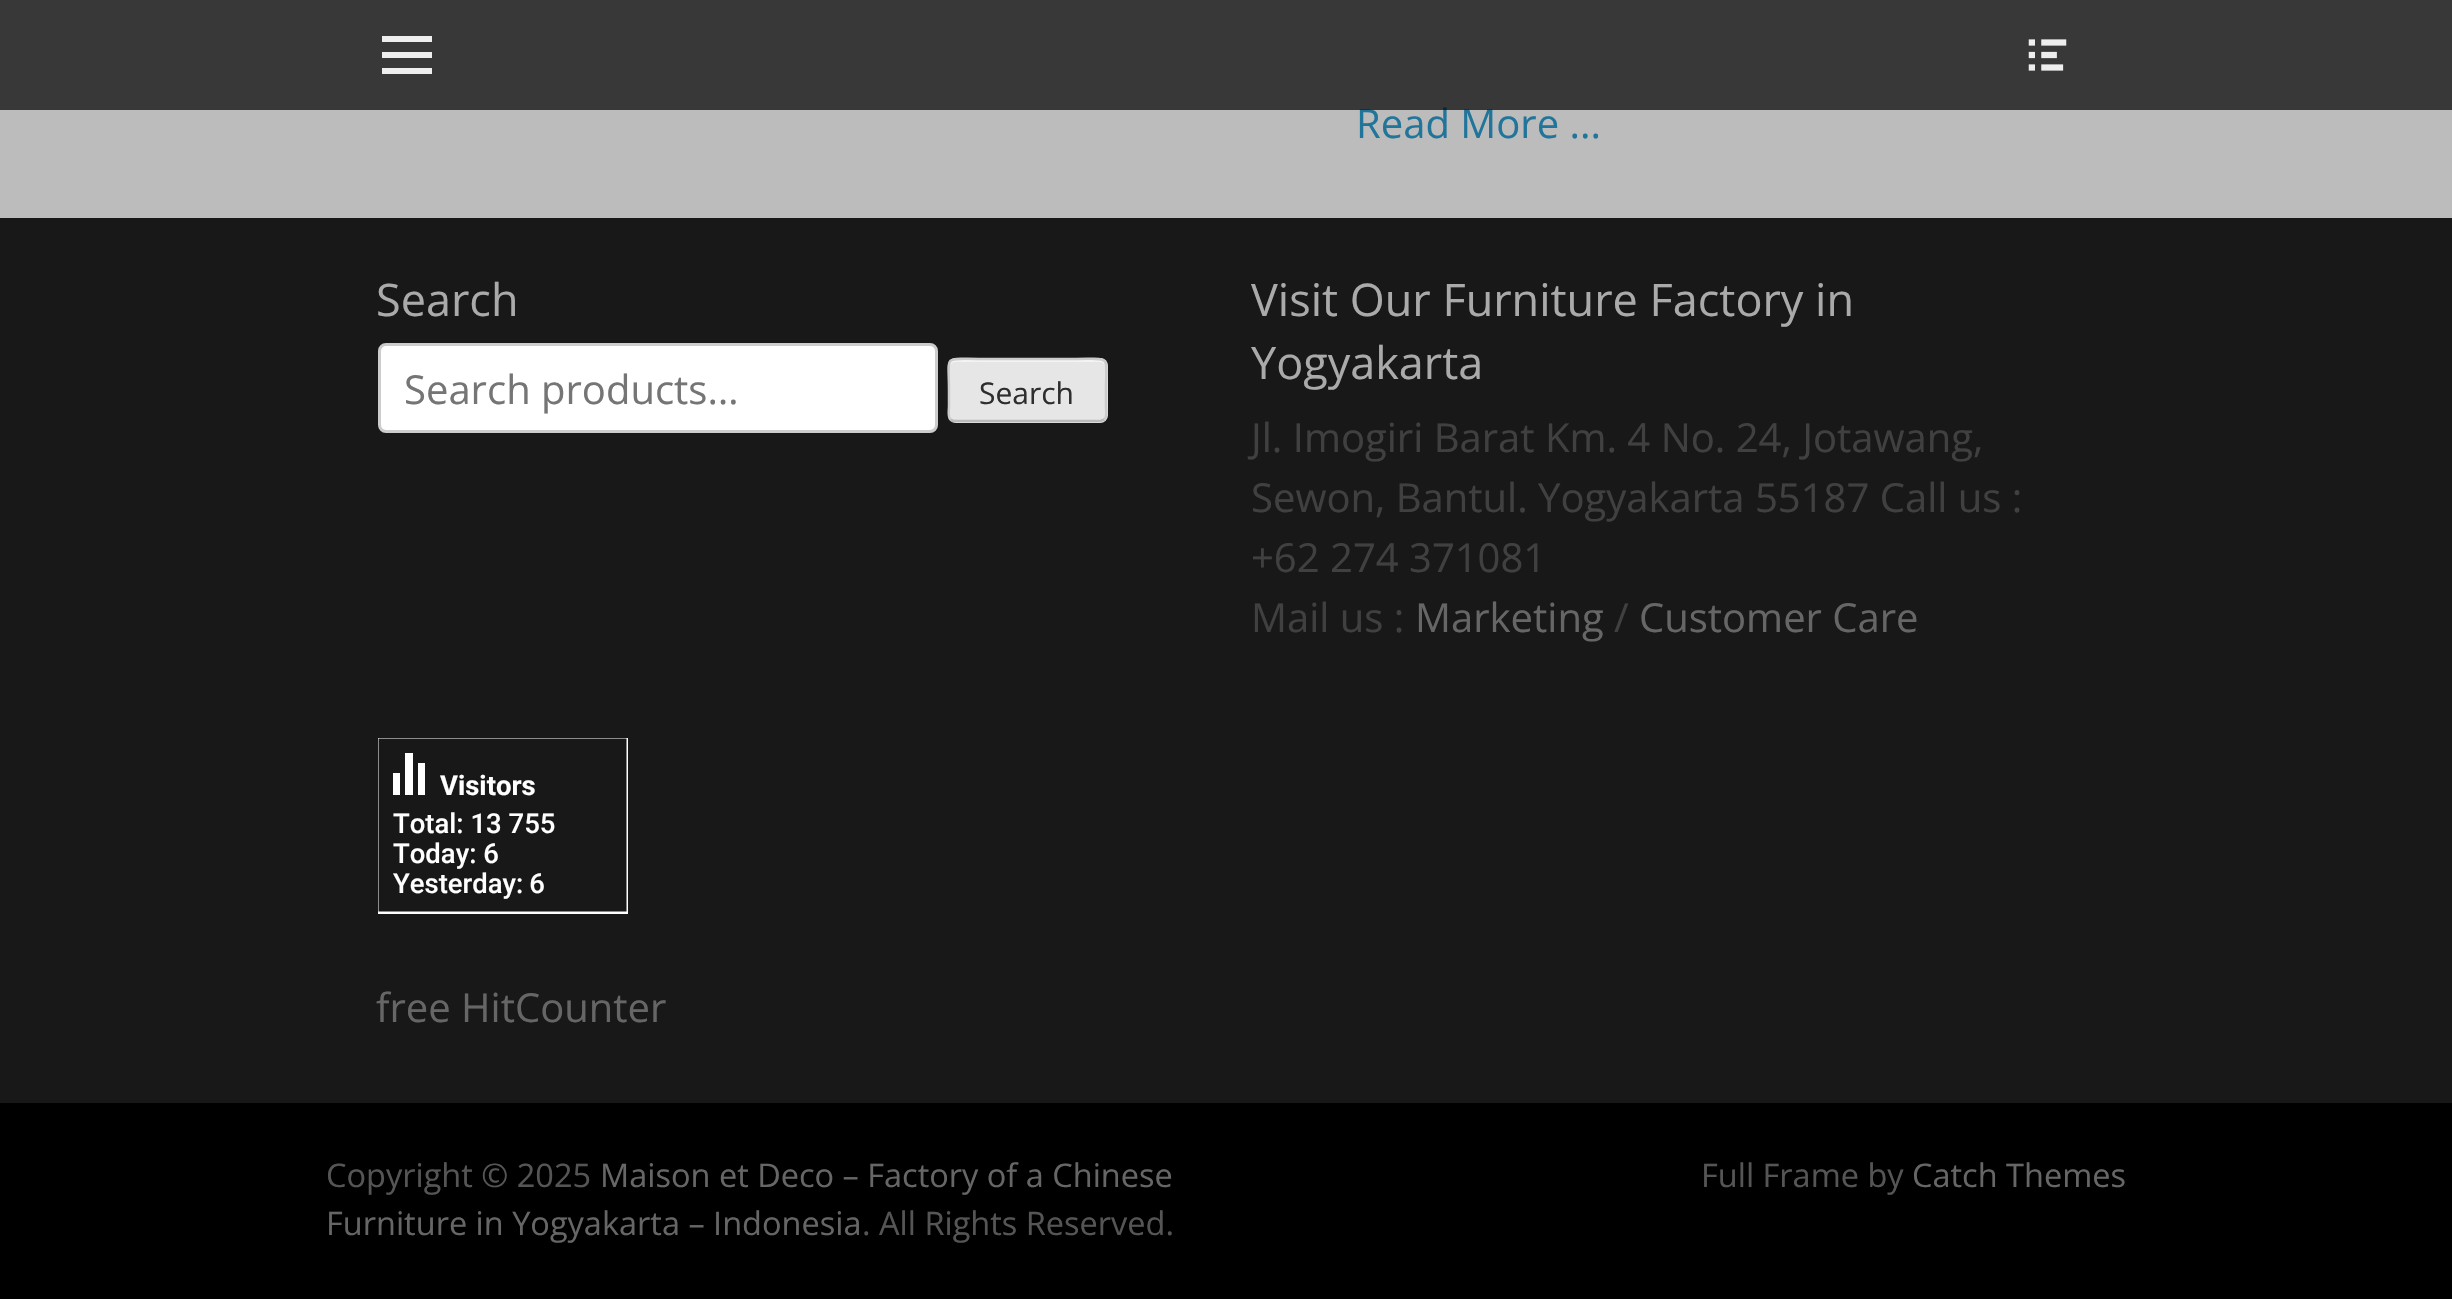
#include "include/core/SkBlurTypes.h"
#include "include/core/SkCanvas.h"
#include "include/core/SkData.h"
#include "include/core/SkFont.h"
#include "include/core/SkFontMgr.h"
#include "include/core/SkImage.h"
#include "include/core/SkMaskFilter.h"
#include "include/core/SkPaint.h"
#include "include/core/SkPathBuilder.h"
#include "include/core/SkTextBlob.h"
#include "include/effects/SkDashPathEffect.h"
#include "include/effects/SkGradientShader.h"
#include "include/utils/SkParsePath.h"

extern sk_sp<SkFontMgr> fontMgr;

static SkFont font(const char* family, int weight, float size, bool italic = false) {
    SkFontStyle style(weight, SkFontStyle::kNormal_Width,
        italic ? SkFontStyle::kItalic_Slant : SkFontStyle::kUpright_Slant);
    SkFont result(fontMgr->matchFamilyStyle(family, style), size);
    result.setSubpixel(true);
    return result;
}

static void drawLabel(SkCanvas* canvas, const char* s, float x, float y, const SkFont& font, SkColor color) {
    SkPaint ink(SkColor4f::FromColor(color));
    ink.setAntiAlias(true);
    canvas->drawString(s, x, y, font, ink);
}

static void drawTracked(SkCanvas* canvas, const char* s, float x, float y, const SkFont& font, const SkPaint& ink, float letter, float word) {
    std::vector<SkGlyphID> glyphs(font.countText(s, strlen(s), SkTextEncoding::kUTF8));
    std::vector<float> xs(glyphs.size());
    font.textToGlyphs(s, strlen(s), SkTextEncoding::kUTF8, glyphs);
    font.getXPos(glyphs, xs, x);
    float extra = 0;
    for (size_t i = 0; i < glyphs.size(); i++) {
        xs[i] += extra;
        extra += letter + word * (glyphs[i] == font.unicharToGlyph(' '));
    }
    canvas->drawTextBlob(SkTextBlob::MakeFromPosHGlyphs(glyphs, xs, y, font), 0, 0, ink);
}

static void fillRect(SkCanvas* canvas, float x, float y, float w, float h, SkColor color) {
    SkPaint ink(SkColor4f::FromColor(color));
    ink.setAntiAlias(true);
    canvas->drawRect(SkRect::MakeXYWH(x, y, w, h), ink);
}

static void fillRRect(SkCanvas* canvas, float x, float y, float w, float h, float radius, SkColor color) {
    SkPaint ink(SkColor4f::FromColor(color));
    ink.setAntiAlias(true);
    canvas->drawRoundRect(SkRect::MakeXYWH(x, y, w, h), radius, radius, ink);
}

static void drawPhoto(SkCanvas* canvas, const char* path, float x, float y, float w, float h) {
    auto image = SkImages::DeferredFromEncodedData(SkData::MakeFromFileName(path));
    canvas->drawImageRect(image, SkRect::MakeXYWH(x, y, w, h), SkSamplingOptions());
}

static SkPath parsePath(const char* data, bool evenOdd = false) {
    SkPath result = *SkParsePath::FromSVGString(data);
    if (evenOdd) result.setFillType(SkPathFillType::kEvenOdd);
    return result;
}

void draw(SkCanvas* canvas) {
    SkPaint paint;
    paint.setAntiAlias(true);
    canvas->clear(0xFFBCBCBC);
    SkFont font1 = font("Open Sans", 400, 40);
    drawLabel(canvas, "Read More ...", 1356, 138, font1, 0xFF21759B);
    fillRect(canvas, 0, 0, 2452, 110, 0xB3000000);
    paint.setColor(0xFFEEEEEE);
    canvas->drawPath(parsePath("M382 74V68H432V74ZM382 36H432V42H382ZM382 58V52H432V58Z"), paint);
    drawPhoto(canvas, "assets/img1.png", 2028, 39, 39, 32);
    fillRect(canvas, 0, 218, 2452, 885, 0xFF181818);
    SkFont font2 = font("Open Sans", 400, 45);
    drawLabel(canvas, "Search", 376, 316, font2, 0xFFAAAAAA);
    paint.setColor(0xFFFFFFFF);
    canvas->drawRoundRect(SkRect::MakeXYWH(379.5f, 344.5f, 557, 87), 6.5f, 6.5f, paint);
    paint.setStroke(true);
    paint.setStrokeWidth(3);
    paint.setColor(0xFFCCCCCC);
    canvas->drawRoundRect(SkRect::MakeXYWH(379.5f, 344.5f, 557, 87), 6.5f, 6.5f, paint);
    drawLabel(canvas, "Search products…", 404, 404, font1, 0xFF757575);
    fillRRect(canvas, 948, 358, 160, 65, 8, 0xFFE6E6E6);
    paint.setStroke(false);
    paint.setColor(0xFFF3F3F3);
    canvas->drawPath(parsePath("M955 362H1100C1103 362 1105 365 1105 368V365C1105 362 1103 360 1100 360H955C952 360 950 362 950 365V368C950 365 952 362 955 362Z"), paint);
    paint.setStroke(true);
    paint.setStrokeWidth(2.5f);
    paint.setColor(0xFFBBBBBB);
    canvas->drawPath(parsePath("M1104.5 419.5L1100.5 421H954.5C953 421 951.5 420.5 950.5 419.5"), paint);
    paint.setColor(0xFFCCCCCC);
    canvas->drawPath(parsePath("M950.5 419.5C947.5 416.5 949 410 949 406.5V390C949 354 942.5 359 979 359H1076C1112.5 359 1106 354 1106 390V406.5C1106 410 1107.5 416.5 1104.5 419.5"), paint);
    SkFont font3 = font("Open Sans", 400, 30);
    drawLabel(canvas, "Search", 979, 404, font3, 0xFF2E2E2E);
    drawLabel(canvas, "Visit Our Furniture Factory in", 1251, 316, font2, 0xFFAAAAAA);
    drawLabel(canvas, "Yogyakarta", 1251, 379, font2, 0xFFAAAAAA);
    drawLabel(canvas, "Jl. Imogiri Barat Km. 4 No. 24, Jotawang,", 1251, 452, font1, 0xFF404040);
    drawLabel(canvas, "Sewon, Bantul. Yogyakarta 55187 Call us :", 1251, 512, font1, 0xFF404040);
    drawLabel(canvas, "+62 274 371081", 1251, 572, font1, 0xFF404040);
    drawLabel(canvas, "Mail us :", 1251, 632, font1, 0xFF404040);
    drawLabel(canvas, "Marketing", 1415, 632, font1, 0xFF666666);
    drawLabel(canvas, "/", 1614, 632, font1, 0xFF404040);
    drawLabel(canvas, "Customer Care", 1639, 632, font1, 0xFF666666);
    canvas->save();
    canvas->clipRect(SkRect::MakeXYWH(378, 738, 250, 225));
    paint.setColor(0xFFFFFFFF);
    canvas->drawRect(SkRect::MakeXYWH(377.25f, 737.25f, 250.5f, 175.5f), paint);
    canvas->restore();
    SkFont font4 = font("Roboto", 700, 27.5f);
    drawLabel(canvas, "Visitors", 440, 795, font4, 0xFFFFFFFF);
    fillRect(canvas, 393, 773, 7, 22, 0xFFFFFFFF);
    fillRect(canvas, 405, 753, 8, 42, 0xFFFFFFFF);
    fillRect(canvas, 418, 763, 7, 32, 0xFFFFFFFF);
    SkFont font5 = font("Roboto", 500, 27.5f);
    drawLabel(canvas, "Total: 13 755", 393, 833, font5, 0xFFFFFFFF);
    drawLabel(canvas, "Today: 6", 393, 863, font5, 0xFFFFFFFF);
    paint.setStroke(false);
    drawTracked(canvas, "Yesterday: 6", 393, 893, font5, paint, 0, -1);
    drawLabel(canvas, "free HitCounter", 376, 1022, font1, 0xFF666666);
    fillRect(canvas, 0, 1103, 2452, 196, 0xFF000000);
    SkFont font6 = font("Open Sans", 400, 32.5f);
    drawLabel(canvas, "Copyright © 2025", 326, 1187, font6, 0xFF555555);
    drawLabel(canvas, "Maison et Deco – Factory of a Chinese", 600, 1187, font6, 0xFF666666);
    drawLabel(canvas, "Furniture in Yogyakarta – Indonesia", 326, 1235, font6, 0xFF666666);
    drawLabel(canvas, ". All Rights Reserved.", 862, 1235, font6, 0xFF555555);
    drawLabel(canvas, "Full Frame by", 1701, 1187, font6, 0xFF555555);
    drawLabel(canvas, "Catch Themes", 1912, 1187, font6, 0xFF666666);
}
